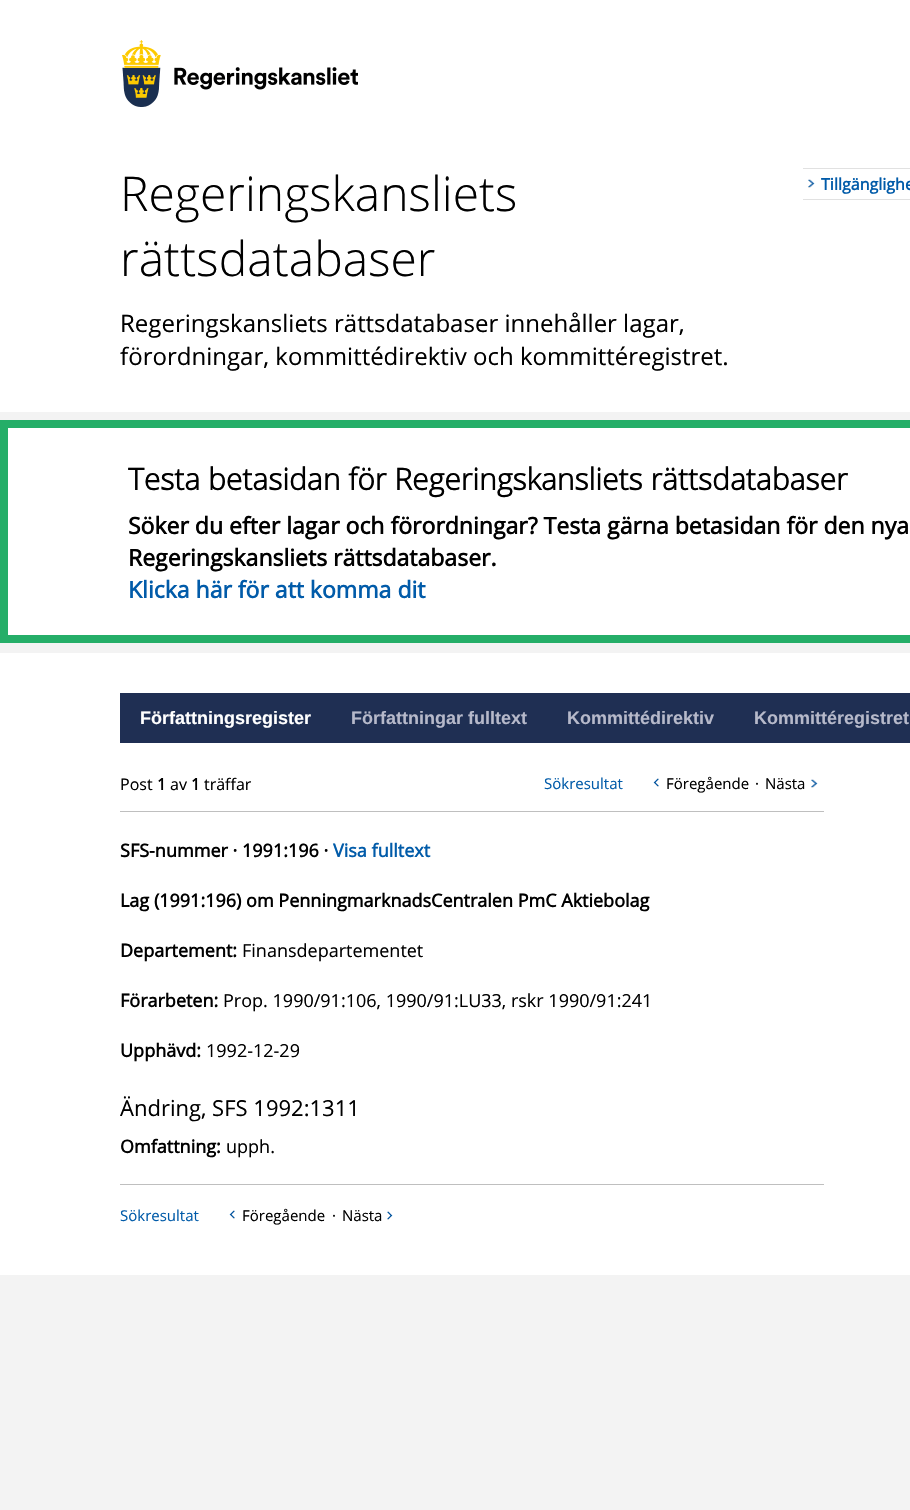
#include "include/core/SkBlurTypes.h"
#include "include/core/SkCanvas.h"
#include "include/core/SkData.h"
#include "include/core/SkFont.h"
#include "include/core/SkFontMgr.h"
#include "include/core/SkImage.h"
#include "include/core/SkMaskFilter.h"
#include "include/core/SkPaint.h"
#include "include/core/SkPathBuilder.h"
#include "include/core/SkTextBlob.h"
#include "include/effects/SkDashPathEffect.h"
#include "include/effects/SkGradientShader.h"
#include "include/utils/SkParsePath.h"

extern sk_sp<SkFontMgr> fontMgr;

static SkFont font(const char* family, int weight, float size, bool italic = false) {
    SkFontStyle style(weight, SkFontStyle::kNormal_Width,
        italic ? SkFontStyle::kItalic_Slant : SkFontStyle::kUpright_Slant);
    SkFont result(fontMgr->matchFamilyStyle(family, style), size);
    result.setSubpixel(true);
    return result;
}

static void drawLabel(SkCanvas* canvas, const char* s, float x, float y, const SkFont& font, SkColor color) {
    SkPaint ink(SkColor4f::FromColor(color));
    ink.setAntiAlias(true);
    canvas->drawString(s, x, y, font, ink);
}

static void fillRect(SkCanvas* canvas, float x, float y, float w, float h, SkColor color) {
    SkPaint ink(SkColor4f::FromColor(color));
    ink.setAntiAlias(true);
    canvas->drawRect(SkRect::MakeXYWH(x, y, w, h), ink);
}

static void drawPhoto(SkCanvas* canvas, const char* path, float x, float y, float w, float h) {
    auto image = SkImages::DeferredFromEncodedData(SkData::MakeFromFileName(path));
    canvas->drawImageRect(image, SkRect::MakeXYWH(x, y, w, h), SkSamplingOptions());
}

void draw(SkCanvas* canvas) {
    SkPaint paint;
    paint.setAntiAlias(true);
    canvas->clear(0xFFF3F3F3);
    fillRect(canvas, 0, 0, 910, 412, 0xFFFFFFFF);
    drawPhoto(canvas, "assets/img1.png", 122, 40, 236, 67);
    SkFont font1 = font("Open Sans", 300, 48);
    drawLabel(canvas, "Regeringskansliets", 120, 211, font1, 0xFF000000);
    drawLabel(canvas, "rättsdatabaser", 120, 276, font1, 0xFF000000);
    SkFont font2 = font("Open Sans", 400, 24);
    drawLabel(canvas, "Regeringskansliets rättsdatabaser innehåller lagar,", 120, 332, font2, 0xFF000000);
    drawLabel(canvas, "förordningar, kommittédirektiv och kommittéregistret.", 120, 365, font2, 0xFF000000);
    fillRect(canvas, 803, 168, 107, 1, 0xFFE1E1E1);
    fillRect(canvas, 803, 199, 107, 1, 0xFFE1E1E1);
    drawPhoto(canvas, "assets/img2.png", 808, 179, 7, 9);
    SkFont font3 = font("Open Sans", 700, 16);
    drawLabel(canvas, "Tillgänglighe", 821, 190, font3, 0xFF015BA9);
    paint.setColor(0xFFFFFFFF);
    canvas->drawRect(SkRect::MakeXYWH(4, 424, 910, 215), paint);
    paint.setStroke(true);
    paint.setStrokeWidth(8);
    paint.setColor(0xFF25AE68);
    canvas->drawRect(SkRect::MakeXYWH(4, 424, 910, 215), paint);
    SkFont font4 = font("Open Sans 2", 700, 30);
    drawLabel(canvas, "Testa betasidan för Regeringskansliets rättsdatabaser", 128, 490, font4, 0xFF000000);
    SkFont font5 = font("Open Sans", 700, 23);
    drawLabel(canvas, "Söker du efter lagar och förordningar? Testa gärna betasidan för den nya", 128, 534, font5, 0xFF000000);
    drawLabel(canvas, "Regeringskansliets rättsdatabaser.", 128, 566, font5, 0xFF000000);
    drawLabel(canvas, "Klicka här för att komma dit", 128, 598, font5, 0xFF015BA9);
    fillRect(canvas, 0, 653, 910, 622, 0xFFFFFFFF);
    fillRect(canvas, 120, 693, 790, 50, 0xFF1F2F53);
    SkFont font6 = font("Liberation Sans", 700, 18);
    drawLabel(canvas, "Författningsregister", 140, 724, font6, 0xFFFFFFFF);
    drawLabel(canvas, "Författningar fulltext", 351, 724, font6, 0xFFB6B9CA);
    drawLabel(canvas, "Kommittédirektiv", 567, 724, font6, 0xFFB6B9CA);
    drawLabel(canvas, "Kommittéregistret", 754, 724, font6, 0xFFB6B9CA);
    fillRect(canvas, 120, 811, 704, 1, 0xFFBFBFBF);
    SkFont font7 = font("Open Sans", 400, 16);
    drawLabel(canvas, "Post", 120, 790, font7, 0xFF000000);
    drawLabel(canvas, "1", 157, 790, font3, 0xFF000000);
    drawLabel(canvas, "av", 170, 790, font7, 0xFF000000);
    drawLabel(canvas, "1", 191, 790, font3, 0xFF000000);
    drawLabel(canvas, "träffar", 204, 790, font7, 0xFF000000);
    SkFont font8 = font("Open Sans", 400, 15);
    drawLabel(canvas, "Sökresultat", 544, 789, font8, 0xFF015BA9);
    drawPhoto(canvas, "assets/img3.png", 653, 778, 6, 9);
    drawLabel(canvas, "Föregående", 666, 789, font8, 0xFF000000);
    drawLabel(canvas, "·", 755, 789, font8, 0xFF000000);
    drawLabel(canvas, "Nästa", 765, 789, font8, 0xFF000000);
    drawPhoto(canvas, "assets/img4.png", 811, 779, 7, 9);
    SkFont font9 = font("Open Sans", 700, 18);
    drawLabel(canvas, "SFS-nummer · 1991:196 ·", 120, 857, font9, 0xFF000000);
    drawLabel(canvas, "Visa fulltext", 333, 857, font9, 0xFF015BA9);
    drawLabel(canvas, "Lag (1991:196) om PenningmarknadsCentralen PmC Aktiebolag", 120, 907, font9, 0xFF000000);
    drawLabel(canvas, "Departement:", 120, 957, font9, 0xFF000000);
    SkFont font10 = font("Open Sans", 400, 18);
    drawLabel(canvas, "Finansdepartementet", 242, 957, font10, 0xFF000000);
    drawLabel(canvas, "Förarbeten:", 120, 1007, font9, 0xFF000000);
    drawLabel(canvas, "Prop. 1990/91:106, 1990/91:LU33, rskr 1990/91:241", 223, 1007, font10, 0xFF000000);
    drawLabel(canvas, "Upphävd:", 120, 1057, font9, 0xFF000000);
    drawLabel(canvas, "1992-12-29", 206, 1057, font10, 0xFF000000);
    SkFont font11 = font("Open Sans", 400, 22);
    drawLabel(canvas, "Ändring, SFS 1992:1311", 120, 1116, font11, 0xFF000000);
    drawLabel(canvas, "Omfattning:", 120, 1153, font9, 0xFF000000);
    drawLabel(canvas, "upph.", 226, 1153, font10, 0xFF000000);
    fillRect(canvas, 120, 1184, 704, 1, 0xFFBFBFBF);
    drawLabel(canvas, "Sökresultat", 120, 1221, font8, 0xFF015BA9);
    drawPhoto(canvas, "assets/img3.png", 229, 1210, 6, 9);
    drawLabel(canvas, "Föregående", 242, 1221, font8, 0xFF000000);
    drawLabel(canvas, "·", 332, 1221, font8, 0xFF000000);
    drawLabel(canvas, "Nästa", 342, 1221, font8, 0xFF000000);
    drawPhoto(canvas, "assets/img5.png", 387, 1211, 6, 9);
}
